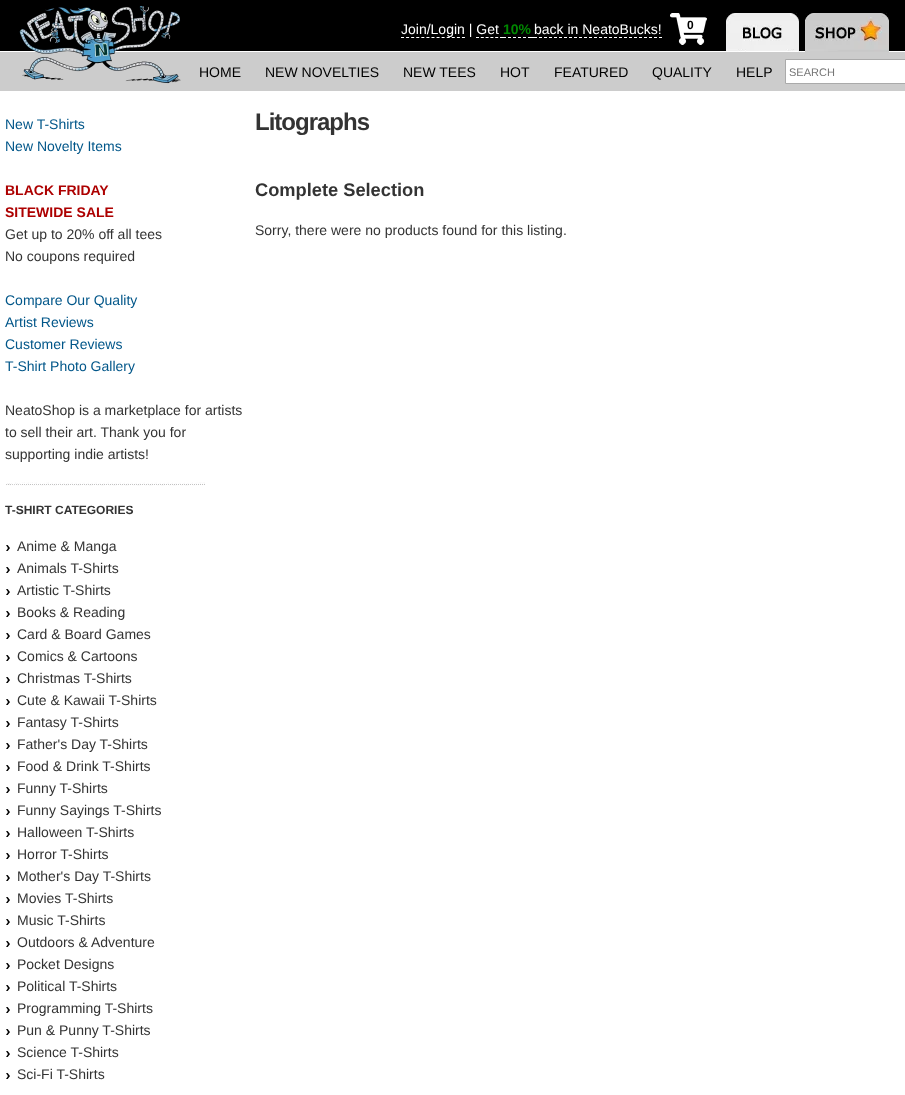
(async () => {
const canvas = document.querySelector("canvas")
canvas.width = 905
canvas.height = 1095
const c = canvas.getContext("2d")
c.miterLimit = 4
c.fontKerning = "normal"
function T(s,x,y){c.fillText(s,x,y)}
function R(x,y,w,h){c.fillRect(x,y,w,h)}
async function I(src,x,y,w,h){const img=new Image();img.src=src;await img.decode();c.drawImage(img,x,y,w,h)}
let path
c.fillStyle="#fff"
R(0,0,905,1095)
c.fillStyle="#000"
R(0,0,905,51)
c.fillStyle="#ccc"
R(0,52,905,39)
await I("1.png",19,5,162,79)
c.font="14px Liberation Sans"
c.fillStyle="#fff"
T("Join/Login | Get",401,34)
path = new Path2D("M401 37.5h64")
c.strokeStyle="#fff"
c.setLineDash([3,2.08])
c.stroke(path)
c.font="bold 14px Liberation Sans"
c.fillStyle="#080"
T("10%",503,34)
path = new Path2D("M476 37.5h27")
c.setLineDash([3,1.8])
c.stroke(path)
path = new Path2D("M503 37.5h28")
c.setLineDash([3,2])
c.stroke(path)
c.fillStyle="#fff"
R(531,37,3,1)
c.font="14px Liberation Sans"
T("back in NeatoBucks!",534,34)
path = new Path2D("M534 37.5h128")
c.stroke(path)
await I("2.png",670,13,37,32)
c.font="bold 12px Liberation Sans"
c.fillStyle="#000"
T("0",687,29)
await I("3.png",726,13,163,39)
c.font="14px Liberation Sans"
T("HOME",199,77)
T("NEW NOVELTIES",265,77)
T("NEW TEES",403,77)
T("HOT",500,77)
T("FEATURED",554,77)
T("QUALITY",652,77)
T("HELP",736,77)
c.fillStyle="#fff"
c.beginPath()
c.rect(785.5,59.5,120,24)
c.fill()
c.strokeStyle="#aaa"
c.setLineDash([])
c.stroke()
c.font="11px Liberation Sans"
c.fillStyle="#757575"
T("SEARCH",789,76)
c.font="14px Liberation Sans"
c.fillStyle="#005689"
T("New T-Shirts",5,129)
T("New Novelty Items",5,151)
c.font="bold 14px Liberation Sans"
c.fillStyle="#ad0000"
T("BLACK FRIDAY",5,195)
T("SITEWIDE SALE",5,217)
c.font="14px Liberation Sans"
c.fillStyle="#333"
T("Get up to 20% off all tees",5,239)
T("No coupons required",5,261)
c.fillStyle="#005689"
T("Compare Our Quality",5,305)
T("Artist Reviews",5,327)
T("Customer Reviews",5,349)
T("T-Shirt Photo Gallery",5,371)
c.fillStyle="#333"
T("NeatoShop is a marketplace for artists",5,415)
T("to sell their art. Thank you for",5,437)
T("supporting indie artists!",5,459)
await I("4.png",6,482,199,4)
c.font="bold 12px Liberation Sans"
T("T-SHIRT CATEGORIES",5,514)
await I("5.png",6,545,4,6)
c.font="14px Liberation Sans"
T("Anime & Manga",17,551)
await I("5.png",6,567,4,6)
T("Animals T-Shirts",17,573)
await I("5.png",6,589,4,6)
T("Artistic T-Shirts",17,595)
await I("5.png",6,611,4,6)
T("Books & Reading",17,617)
await I("5.png",6,633,4,6)
T("Card & Board Games",17,639)
await I("5.png",6,655,4,6)
T("Comics & Cartoons",17,661)
await I("5.png",6,677,4,6)
T("Christmas T-Shirts",17,683)
await I("5.png",6,699,4,6)
T("Cute & Kawaii T-Shirts",17,705)
await I("5.png",6,721,4,6)
T("Fantasy T-Shirts",17,727)
await I("5.png",6,743,4,6)
T("Father's Day T-Shirts",17,749)
await I("5.png",6,765,4,6)
T("Food & Drink T-Shirts",17,771)
await I("5.png",6,787,4,6)
T("Funny T-Shirts",17,793)
await I("5.png",6,809,4,6)
T("Funny Sayings T-Shirts",17,815)
await I("5.png",6,831,4,6)
T("Halloween T-Shirts",17,837)
await I("5.png",6,853,4,6)
T("Horror T-Shirts",17,859)
await I("5.png",6,875,4,6)
T("Mother's Day T-Shirts",17,881)
await I("5.png",6,897,4,6)
T("Movies T-Shirts",17,903)
await I("5.png",6,919,4,6)
T("Music T-Shirts",17,925)
await I("5.png",6,941,4,6)
T("Outdoors & Adventure",17,947)
await I("5.png",6,963,4,6)
T("Pocket Designs",17,969)
await I("5.png",6,985,4,6)
T("Political T-Shirts",17,991)
await I("5.png",6,1007,4,6)
T("Programming T-Shirts",17,1013)
await I("5.png",6,1029,4,6)
T("Pun & Punny T-Shirts",17,1035)
await I("5.png",6,1051,4,6)
T("Science T-Shirts",17,1057)
await I("5.png",6,1073,4,6)
T("Sci-Fi T-Shirts",17,1079)
c.letterSpacing="-1px"
c.font="bold 24px Liberation Sans"
T("Litographs",255,130)
c.letterSpacing="0px"
c.font="bold 18.25px Liberation Sans"
T("Complete Selection",255,196)
c.font="14px Liberation Sans"
T("Sorry, there were no products found for this listing.",255,235)
})()
